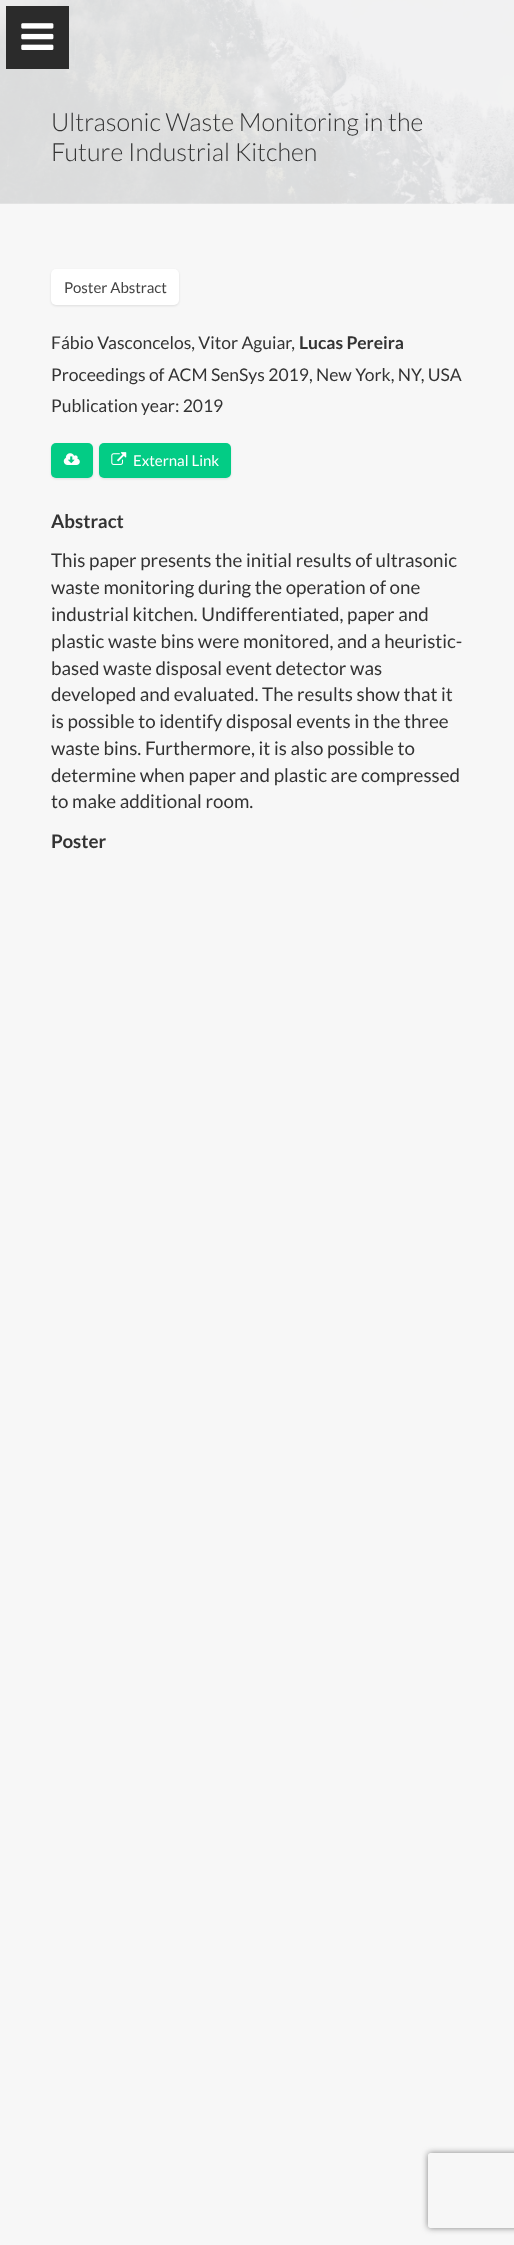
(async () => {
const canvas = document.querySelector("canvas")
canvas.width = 514
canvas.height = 2245
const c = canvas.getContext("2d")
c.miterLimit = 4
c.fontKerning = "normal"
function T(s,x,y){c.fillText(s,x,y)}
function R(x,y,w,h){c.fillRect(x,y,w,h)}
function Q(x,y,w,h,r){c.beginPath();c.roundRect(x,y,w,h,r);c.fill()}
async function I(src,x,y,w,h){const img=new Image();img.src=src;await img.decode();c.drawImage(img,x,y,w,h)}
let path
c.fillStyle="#f7f7f7"
R(0,0,514,2245)
await I("2.png",0,0,514,204)
c.fillStyle="#2b2b2b"
R(6,6,63,63)
await I("1.png",21,23,33,27)
c.font="300 25px Lato"
c.fillStyle="#333"
T("Ultrasonic Waste Monitoring in the",51,131)
T("Future Industrial Kitchen",51,161)
c.fillStyle="#0000001a"
c.filter="blur(1px)"
c.beginPath()
c.roundRect(51,270,128,36,5)
c.fill()
c.filter="none"
c.fillStyle="#fff"
Q(51,269,128,36,5)
c.font="15px Lato"
c.fillStyle="#444"
T("Poster Abstract",64,293)
c.font="17.5px Lato"
c.fillStyle="#333"
T("Fábio Vasconcelos, Vitor Aguiar,",51,349)
c.font="bold 17.5px Lato"
T("Lucas Pereira",299,349)
c.font="17.5px Lato"
T("Proceedings of ACM SenSys 2019, New York, NY, USA",51,381)
T("Publication year: 2019",51,412)
c.fillStyle="#0000001a"
c.filter="blur(1px)"
c.beginPath()
c.roundRect(51,444,42,35,5)
c.fill()
c.filter="none"
c.fillStyle="#03cc85"
Q(51,443,42,35,5)
await I("3.png",63,453,17,12)
c.fillStyle="#0000001a"
c.filter="blur(1px)"
c.beginPath()
c.roundRect(99,444,132,35,5)
c.fill()
c.filter="none"
c.fillStyle="#03cc85"
Q(99,443,132,35,5)
await I("4.png",111,452,16,13)
c.font="15px Lato"
c.fillStyle="#fff"
T("External Link",133,466)
c.font="bold 18.75px Lato"
c.fillStyle="#333"
T("Abstract",51,528)
c.font="18.75px Lato"
T("This paper presents the initial results of ultrasonic",51,567)
T("waste monitoring during the operation of one",51,594)
T("industrial kitchen. Undifferentiated, paper and",51,621)
T("plastic waste bins were monitored, and a heuristic-",51,648)
T("based waste disposal event detector was",51,675)
T("developed and evaluated. The results show that it",51,701)
T("is possible to identify disposal events in the three",51,728)
T("waste bins. Furthermore, it is also possible to",51,755)
T("determine when paper and plastic are compressed",51,782)
T("to make additional room.",51,808)
c.font="bold 18.75px Lato"
T("Poster",51,848)
c.save()
path = new Path2D("M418 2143h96v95h-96zm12.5 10h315c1.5 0 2.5 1 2.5 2.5v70c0 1.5-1 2.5-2.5 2.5h-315c-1.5 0-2.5-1-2.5-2.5v-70c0-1.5 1-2.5 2.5-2.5z")
c.clip(path,"evenodd")
c.fillStyle="#808080"
c.filter="blur(3px)"
c.beginPath()
c.roundRect(428,2153,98,75,2.5)
c.fill()
c.filter="none"
c.restore()
})()
